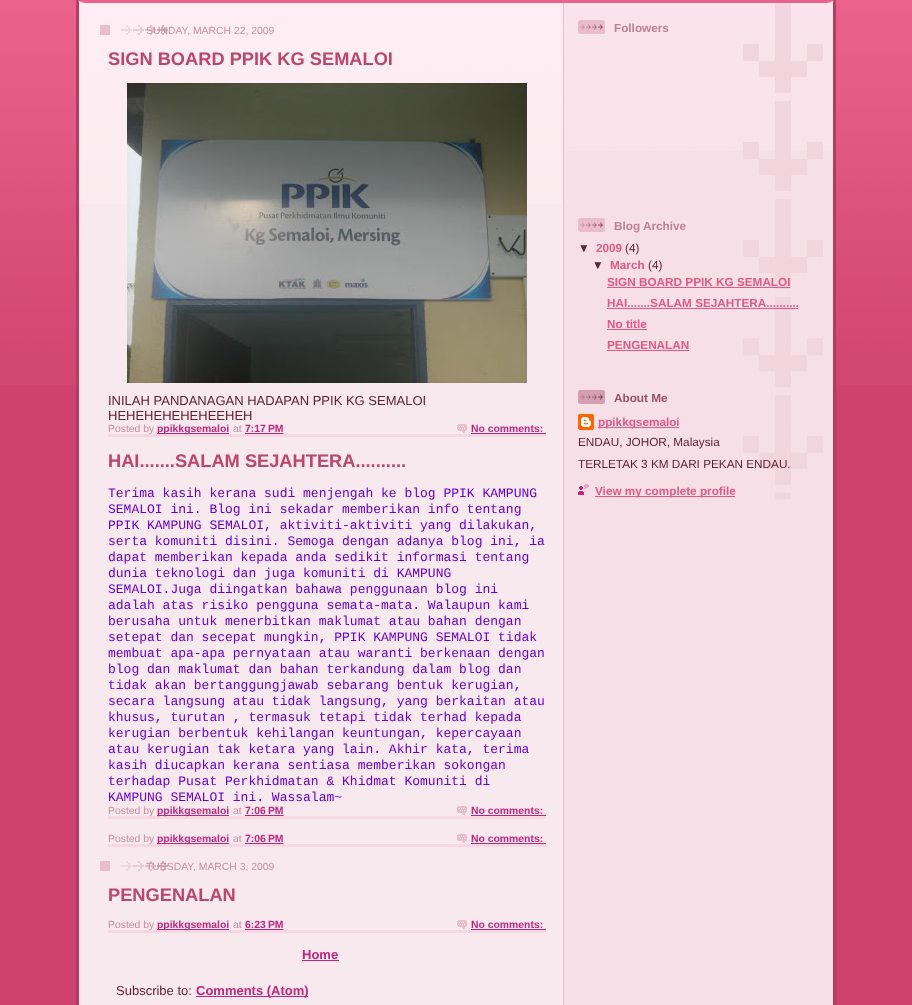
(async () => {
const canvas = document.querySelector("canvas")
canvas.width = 912
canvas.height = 1005
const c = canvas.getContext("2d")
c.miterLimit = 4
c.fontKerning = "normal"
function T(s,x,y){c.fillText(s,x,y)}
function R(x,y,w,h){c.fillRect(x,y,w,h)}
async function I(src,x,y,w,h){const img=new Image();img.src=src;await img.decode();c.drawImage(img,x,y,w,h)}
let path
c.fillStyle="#ce436e"
R(0,0,912,1005)
await I("1.png",0,0,912,385)
await I("2.png",76,0,760,3)
await I("3.png",76,3,760,1002)
await I("4.png",79,3,483,201)
c.fillStyle="#ebbdcc"
R(100,25,10,10)
await I("5.png",121,25,47,10)
c.font="10.4px Liberation Sans"
c.fillStyle="#c88fa2"
T("SUNDAY, MARCH 22, 2009",146,34)
c.fillStyle="#f7d8e2"
R(108,434,438,3)
c.font="bold 18.25px Liberation Sans"
c.fillStyle="#ba476b"
T("SIGN BOARD PPIK KG SEMALOI",108,65)
await I("6.png",127,83,400,300)
c.font="13px Liberation Sans"
c.fillStyle="#632035"
T("INILAH PANDANAGAN HADAPAN PPIK KG SEMALOI",108,405)
T("HEHEHEHEHEHEEHEH",108,420)
c.font="10.4px Liberation Sans"
c.fillStyle="#c88fa2"
T("Posted by",108,432)
c.fillStyle="#bf277e"
R(157,433,72,1)
c.font="bold 10.4px Liberation Sans"
T("ppikkgsemaloi",157,432)
c.font="10.4px Liberation Sans"
c.fillStyle="#c88fa2"
T("at",233,432)
c.font="bold 10.4px Liberation Sans"
c.fillStyle="#bf277e"
T("7:17 PM",245,432)
path = new Path2D("M245 433.5h38.5")
c.strokeStyle="#bf277e"
c.setLineDash([1,1])
c.stroke(path)
R(245,433,38,1)
await I("7.png",457,424,10,9)
T("No comments:",471,432)
R(471,433,75,1)
c.fillStyle="#f7d8e2"
R(108,816,438,3)
c.font="bold 18.25px Liberation Sans"
c.fillStyle="#ba476b"
T("HAI.......SALAM SEJAHTERA..........",108,467)
c.font="13px Liberation Mono"
c.fillStyle="#60c"
T("Terima kasih kerana sudi menjengah ke blog PPIK KAMPUNG",108,497)
T("SEMALOI ini. Blog ini sekadar memberikan info tentang",108,513)
T("PPIK KAMPUNG SEMALOI, aktiviti-aktiviti yang dilakukan,",108,529)
T("serta komuniti disini. Semoga dengan adanya blog ini, ia",108,545)
T("dapat memberikan kepada anda sedikit informasi tentang",108,561)
T("dunia teknologi dan juga komuniti di KAMPUNG",108,577)
T("SEMALOI.Juga diingatkan bahawa penggunaan blog ini",108,593)
T("adalah atas risiko pengguna semata-mata. Walaupun kami",108,609)
T("berusaha untuk menerbitkan maklumat atau bahan dengan",108,625)
T("setepat dan secepat mungkin, PPIK KAMPUNG SEMALOI tidak",108,641)
T("membuat apa-apa pernyataan atau waranti berkenaan dengan",108,657)
T("blog dan maklumat dan bahan terkandung dalam blog dan",108,673)
T("tidak akan bertanggungjawab sebarang bentuk kerugian,",108,689)
T("secara langsung atau tidak langsung, yang berkaitan atau",108,705)
T("khusus, turutan , termasuk tetapi tidak terhad kepada",108,721)
T("kerugian berbentuk kehilangan keuntungan, kepercayaan",108,737)
T("atau kerugian tak ketara yang lain. Akhir kata, terima",108,753)
T("kasih diucapkan kerana sentiasa memberikan sokongan",108,769)
T("terhadap Pusat Perkhidmatan & Khidmat Komuniti di",108,785)
T("KAMPUNG SEMALOI ini. Wassalam~",108,801)
c.font="10.4px Liberation Sans"
c.fillStyle="#c88fa2"
T("Posted by",108,814)
c.fillStyle="#bf277e"
R(157,815,72,1)
c.font="bold 10.4px Liberation Sans"
T("ppikkgsemaloi",157,814)
c.font="10.4px Liberation Sans"
c.fillStyle="#c88fa2"
T("at",233,814)
c.font="bold 10.4px Liberation Sans"
c.fillStyle="#bf277e"
T("7:06 PM",245,814)
path = new Path2D("M245 815.5h38.5")
c.stroke(path)
R(245,815,38,1)
await I("7.png",457,806,10,9)
T("No comments:",471,814)
R(471,815,75,1)
c.fillStyle="#f7d8e2"
R(108,844,438,3)
c.font="10.4px Liberation Sans"
c.fillStyle="#c88fa2"
T("Posted by",108,842)
c.fillStyle="#bf277e"
R(157,843,72,1)
c.font="bold 10.4px Liberation Sans"
T("ppikkgsemaloi",157,842)
c.font="10.4px Liberation Sans"
c.fillStyle="#c88fa2"
T("at",233,842)
c.font="bold 10.4px Liberation Sans"
c.fillStyle="#bf277e"
T("7:06 PM",245,842)
path = new Path2D("M245 843.5h38.5")
c.stroke(path)
R(245,843,38,1)
await I("7.png",457,834,10,9)
T("No comments:",471,842)
R(471,843,75,1)
c.fillStyle="#ebbdcc"
R(100,861,10,10)
await I("8.png",121,861,47,10)
c.font="10.4px Liberation Sans"
c.fillStyle="#c88fa2"
T("TUESDAY, MARCH 3, 2009",146,870)
c.fillStyle="#f7d8e2"
R(108,930,438,3)
c.font="bold 18.25px Liberation Sans"
c.fillStyle="#ba476b"
T("PENGENALAN",108,901)
c.font="10.4px Liberation Sans"
c.fillStyle="#c88fa2"
T("Posted by",108,928)
c.fillStyle="#bf277e"
R(157,929,72,1)
c.font="bold 10.4px Liberation Sans"
T("ppikkgsemaloi",157,928)
c.font="10.4px Liberation Sans"
c.fillStyle="#c88fa2"
T("at",233,928)
c.font="bold 10.4px Liberation Sans"
c.fillStyle="#bf277e"
T("6:23 PM",245,928)
path = new Path2D("M245 929.5h38.5")
c.stroke(path)
R(245,929,38,1)
await I("7.png",457,920,10,9)
T("No comments:",471,928)
R(471,929,75,1)
c.font="bold 13px Liberation Sans"
T("Home",302,959)
R(302,960,37,1)
c.font="13px Liberation Sans"
c.fillStyle="#632035"
T("Subscribe to:",116,995)
c.fillStyle="#bf277e"
R(196,996,112,1)
c.font="bold 13px Liberation Sans"
T("Comments (Atom)",196,995)
await I("9.png",564,3,269,148)
await I("10.png",743,3,80,496)
await I("11.png",578,20,27,14)
c.font="bold 11.75px Liberation Sans"
c.fillStyle="#bd8095"
T("Followers",614,32)
await I("12.png",578,218,27,14)
T("Blog Archive",614,230)
c.fillStyle="#632035"
T("▼",578,252)
c.fillStyle="#e25984"
T("2009",596,252)
c.font="11.75px Liberation Sans"
c.fillStyle="#632035"
T("(4)",625,252)
c.font="bold 11.75px Liberation Sans"
T("▼",592,269)
c.fillStyle="#e25984"
T("March",610,269)
c.font="11.75px Liberation Sans"
c.fillStyle="#632035"
T("(4)",648,269)
c.font="bold 11.75px Liberation Sans"
c.fillStyle="#e25984"
T("SIGN BOARD PPIK KG SEMALOI",607,286)
R(607,287,183,1)
T("HAI.......SALAM SEJAHTERA..........",607,307)
R(607,308,191,1)
T("No title",607,328)
R(607,329,40,1)
T("PENGENALAN",607,349)
R(607,350,82,1)
await I("13.png",578,390,27,14)
c.fillStyle="#95526a"
T("About Me",614,402)
await I("14.png",578,414,16,16)
c.fillStyle="#e25984"
R(598,427,81,1)
T("ppikkgsemaloi",598,426)
c.font="11.75px Liberation Sans"
c.fillStyle="#632035"
T("ENDAU, JOHOR, Malaysia",578,446)
T("TERLETAK 3 KM DARI PEKAN ENDAU.",578,468)
await I("15.png",578,484,11,11)
c.fillStyle="#e25984"
R(595,496,140,1)
c.font="bold 11.75px Liberation Sans"
T("View my complete profile",595,495)
})()
